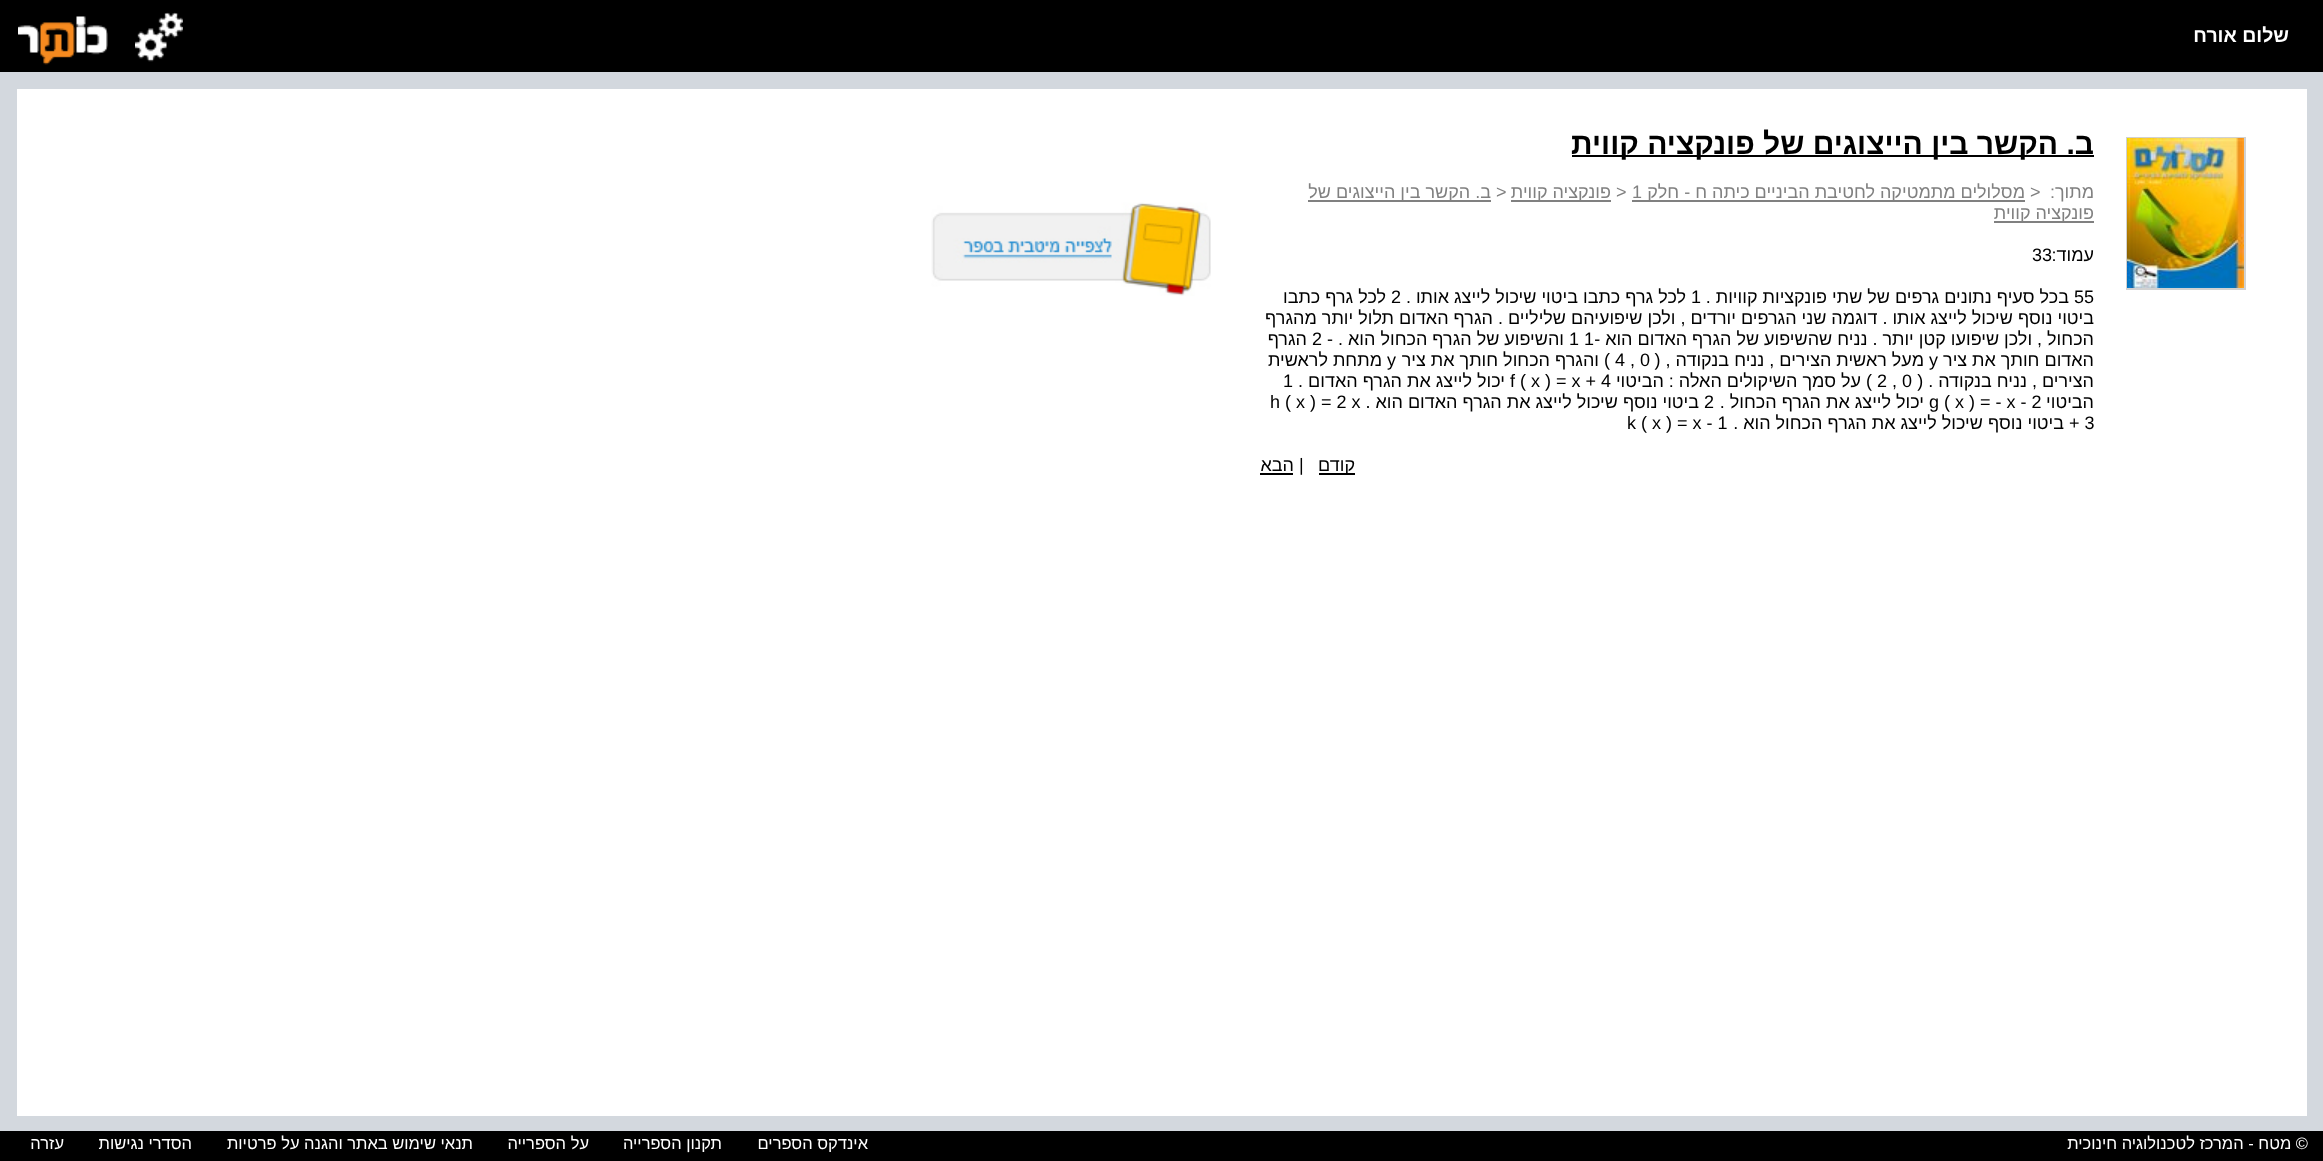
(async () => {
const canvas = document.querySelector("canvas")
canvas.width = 2323
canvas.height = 1161
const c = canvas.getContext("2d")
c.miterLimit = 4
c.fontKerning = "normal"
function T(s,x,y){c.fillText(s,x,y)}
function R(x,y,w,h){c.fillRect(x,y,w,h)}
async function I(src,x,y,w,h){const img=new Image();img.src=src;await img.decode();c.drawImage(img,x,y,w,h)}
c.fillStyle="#d3d8de"
R(0,0,2323,1161)
c.fillStyle="#000"
R(0,0,2323,72)
c.direction="rtl"
c.font="bold 19.5px Liberation Sans"
c.fillStyle="#fff"
T("שלום אורח",2289,42)
await I("1.png",135,12,48,50)
await I("2.png",18,16,90,49)
R(17,89,2290,1027)
c.strokeStyle="#d1d1d1"
c.lineWidth=2
c.strokeRect(2127,138,118,151)
await I("3.png",2127,138,117,150)
c.fillStyle="#000"
R(1572,155,522,2)
c.font="bold 30px Liberation Sans"
T("ב. הקשר בין הייצוגים של פונקציה קווית",2094,154)
c.font="18px Liberation Sans"
c.fillStyle="#808080"
T("מתוך:",2094,198)
c.direction="ltr"
T(">",2030,198)
R(1632,200,393,2)
c.direction="rtl"
T("מסלולים מתמטיקה לחטיבת הביניים כיתה ח - חלק",2025,198)
c.direction="ltr"
T("1",1632,198)
T(">",1616,198)
R(1511,200,100,2)
c.direction="rtl"
T("פונקציה קווית",1611,198)
c.direction="ltr"
T(">",1496,198)
R(1308,200,183,2)
c.direction="rtl"
T("ב. הקשר בין הייצוגים של",1491,198)
R(1994,221,100,2)
T("פונקציה קווית",2094,219)
c.fillStyle="#000"
T("עמוד:",2094,261)
c.direction="ltr"
T("33",2032,261)
T("55",2074,303)
c.direction="rtl"
T("בכל סעיף נתונים גרפים של שתי פונקציות קוויות .",2069,303)
c.direction="ltr"
T("1",1691,303)
c.direction="rtl"
T("לכל גרף כתבו ביטוי שיכול לייצג אותו .",1686,303)
c.direction="ltr"
T("2",1391,303)
c.direction="rtl"
T("לכל גרף כתבו",1386,303)
T("ביטוי נוסף שיכול לייצג אותו . דוגמה שני הגרפים יורדים , ולכן שיפועיהם שליליים . הגרף האדום תלול יותר מהגרף",2094,324)
T("הכחול , ולכן שיפועו קטן יותר . נניח שהשיפוע של הגרף האדום הוא -",2094,345)
c.direction="ltr"
T("1 1",1569,345)
c.direction="rtl"
T("והשיפוע של הגרף הכחול הוא . -",1564,345)
c.direction="ltr"
T("2",1312,345)
c.direction="rtl"
T("הגרף",1307,345)
T("האדום חותך את ציר",2094,366)
c.direction="ltr"
T("y",1929,366)
c.direction="rtl"
T("מעל ראשית הצירים , נניח בנקודה , (",1924,366)
c.direction="ltr"
T("4 , 0",1615,366)
c.direction="rtl"
T(") והגרף הכחול חותך את ציר",1610,366)
c.direction="ltr"
T("y",1387,366)
c.direction="rtl"
T("מתחת לראשית",1382,366)
T("הצירים , נניח בנקודה . (",2094,387)
c.direction="ltr"
T("2 , 0",1877,387)
c.direction="rtl"
T(") על סמך השיקולים האלה : הביטוי",1872,387)
c.direction="ltr"
T("f ( x ) = x + 4",1510,387)
c.direction="rtl"
T("יכול לייצג את הגרף האדום .",1505,387)
c.direction="ltr"
T("1",1283,387)
c.direction="rtl"
T("הביטוי",2094,408)
c.direction="ltr"
T("g ( x ) = - x - 2",1929,408)
c.direction="rtl"
T("יכול לייצג את הגרף הכחול .",1924,408)
c.direction="ltr"
T("2",1704,408)
c.direction="rtl"
T("ביטוי נוסף שיכול לייצג את הגרף האדום הוא .",1699,408)
c.direction="ltr"
T("h ( x ) = 2 x",1270,408)
T("+ 3",2069,429)
c.direction="rtl"
T("ביטוי נוסף שיכול לייצג את הגרף הכחול הוא .",2064,429)
c.direction="ltr"
T("k ( x ) = x - 1",1627,429)
R(1319,473,36,2)
c.direction="rtl"
T("קודם",1355,471)
c.direction="ltr"
T("|",1299,471)
c.direction="rtl"
T("הבא",1294,471)
R(1260,473,33,2)
await I("4.png",931,202,280,94)
R(0,1131,2323,30)
c.font="16.5px Liberation Sans"
c.fillStyle="#fff"
T("© מטח - המרכז לטכנולוגיה חינוכית",2308,1149)
T("אינדקס הספרים",868,1149)
T("תקנון הספרייה",722,1149)
T("על הספרייה",589,1149)
T("תנאי שימוש באתר והגנה על פרטיות",473,1149)
T("הסדרי נגישות",192,1149)
T("עזרה",64,1149)
})()
